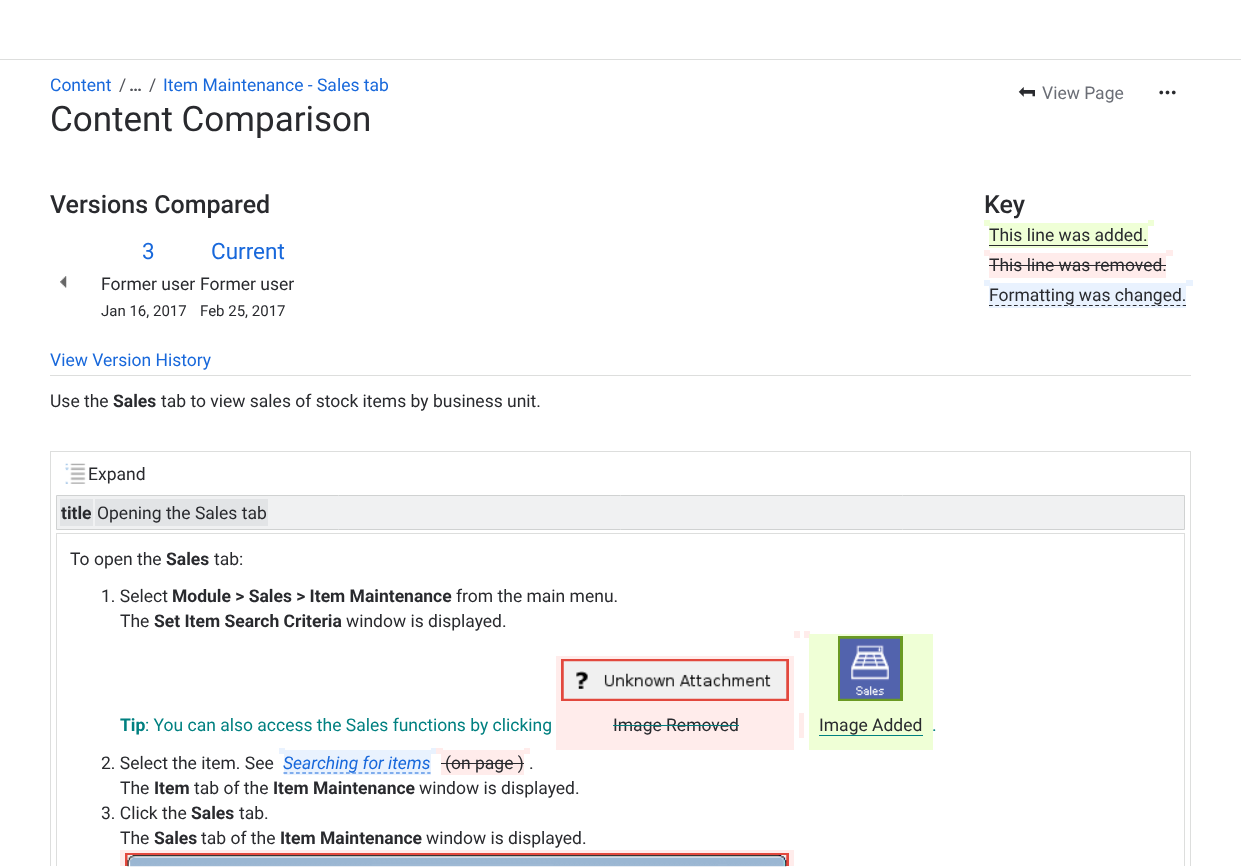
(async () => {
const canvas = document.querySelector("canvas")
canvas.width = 1241
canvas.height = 868
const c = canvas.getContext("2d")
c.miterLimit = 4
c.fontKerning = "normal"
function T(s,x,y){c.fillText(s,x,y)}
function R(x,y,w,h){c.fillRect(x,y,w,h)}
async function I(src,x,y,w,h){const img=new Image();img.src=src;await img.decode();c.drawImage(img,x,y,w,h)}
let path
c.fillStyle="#fff"
R(0,0,1241,868)
c.fillStyle="#dddedd"
R(0,59,1241,1)
c.font="17.5px Roboto"
c.fillStyle="#1868db"
T("Content",50,91)
c.fillStyle="#505258"
T("/",119,91)
c.font="bold 17.5px Roboto"
T("…",129,91)
c.font="17.5px Roboto"
T("/",149,91)
c.fillStyle="#1868db"
T("Item Maintenance - Sales tab",163,91)
c.font="35px Roboto"
c.fillStyle="#292a2e"
T("Content Comparison",50,131)
await I("1.png",1018,87,17,10)
c.font="17.5px Roboto"
c.fillStyle="#6b6e76"
T("View Page",1042,99)
await I("2.png",1159,90,17,5)
c.fillStyle="#dddedd"
R(50,375,1141,1)
c.font="500 25px Roboto"
c.fillStyle="#292a2e"
T("Versions Compared",50,213)
T("Key",984,213)
c.fillStyle="#efffd6"
R(984,220,6,6)
R(989,223,159,25)
c.font="17.5px Roboto"
c.fillStyle="#292a2e"
T("This line was added.",989,241)
c.fillStyle="#efffd6"
R(1148,220,6,6)
c.fillStyle="#292a2e"
R(989,245,159,1)
c.fillStyle="#ffeceb"
R(984,250,6,6)
R(989,253,177,25)
c.fillStyle="#292a2e"
T("This line was removed.",989,271)
c.fillStyle="#ffeceb"
R(1166,250,7,6)
c.fillStyle="#292a2e"
R(989,265,177,1)
c.fillStyle="#e9f2fe"
R(984,280,6,6)
R(989,283,197,25)
path = new Path2D("M989 305.5h197")
c.strokeStyle="#292a2e"
c.lineWidth=1.2
c.setLineDash([3.75,2.5])
c.stroke(path)
c.fillStyle="#292a2e"
T("Formatting was changed.",989,301)
c.fillStyle="#e9f2fe"
R(1186,280,7,6)
c.font="22.5px Roboto"
c.fillStyle="#1868db"
T("3",142,259)
T("Current",211,259)
c.font="17.5px Roboto"
c.fillStyle="#292a2e"
T("Former user",101,290)
T("Former user",200,290)
c.font="15px Roboto"
T("Jan 16, 2017",101,316)
T("Feb 25, 2017",200,316)
await I("3.png",60,276,7,12)
c.font="17.5px Roboto"
c.fillStyle="#1868db"
T("View Version History",50,366)
c.fillStyle="#292a2e"
T("Use the",50,407)
c.font="bold 17.5px Roboto"
T("Sales",113,407)
c.font="17.5px Roboto"
T("tab to view sales of stock items by business unit.",161,407)
c.save()
c.beginPath()
c.rect(0,60,1241,806)
c.clip()
c.strokeStyle="#dddedd"
c.lineWidth=1
c.setLineDash([])
c.strokeRect(50.5,451.5,1140,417)
c.restore()
await I("4.png",65,463,21,21)
T("Expand",88,480)
c.fillStyle="#f0f1f2"
c.beginPath()
c.rect(56.5,495.5,1128,34)
c.fill()
c.strokeStyle="#d0d2d2"
c.lineWidth=1
c.setLineDash([])
c.stroke()
c.fillStyle="#e2e4e6"
R(60,499,33,27)
c.font="bold 17.5px Roboto"
c.fillStyle="#292a2e"
T("title",61,519)
c.fillStyle="#e2e4e6"
R(95,499,173,27)
c.font="17.5px Roboto"
c.fillStyle="#292a2e"
T("Opening the Sales tab",97,519)
c.save()
c.beginPath()
c.rect(0,60,1241,806)
c.clip()
c.strokeStyle="#dddedd"
c.strokeRect(56.5,533.5,1128,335)
c.restore()
T("To open the",70,565)
c.font="bold 17.5px Roboto"
T("Sales",166,565)
c.font="17.5px Roboto"
T("tab:",214,565)
T("1. Select",101,602)
c.font="bold 17.5px Roboto"
T("Module > Sales > Item Maintenance",172,602)
c.font="17.5px Roboto"
T("from the main menu.",456,602)
T("The",120,627)
c.font="bold 17.5px Roboto"
T("Set Item Search Criteria",154,627)
c.font="17.5px Roboto"
T("window is displayed.",346,627)
c.fillStyle="#ffeceb"
R(794,631,6,7)
R(804,631,6,7)
c.font="bold 17.5px Roboto"
c.fillStyle="#008080"
T("Tip",120,731)
c.font="17.5px Roboto"
T(": You can also access the Sales functions by clicking",145,731)
c.fillStyle="#ffeceb"
R(556,656,238,94)
c.strokeStyle="#e2483d"
c.lineWidth=3
c.strokeRect(562.5,660.5,225,39)
await I("5.png",563,661,224,38)
c.fillStyle="#292a2e"
T("Image Removed",613,731)
c.fillStyle="#008080"
R(613,725,126,1)
c.fillStyle="#ffeceb"
R(799,713,5,25)
c.fillStyle="#efffd6"
R(809,634,124,116)
c.strokeStyle="#6a9a23"
c.strokeRect(839.5,637.5,62,62)
await I("6.png",840,638,60,61)
c.fillStyle="#292a2e"
T("Image Added",819,731)
c.fillStyle="#008080"
R(819,735,104,1)
T(".",932,731)
c.fillStyle="#292a2e"
T("2. Select the item. See",101,769)
c.fillStyle="#e9f2fe"
R(279,748,6,6)
R(284,750,147,25)
path = new Path2D("M283.5 773h147")
c.strokeStyle="#1868db"
c.lineWidth=1.2
c.setLineDash([3.75,2.5])
c.stroke(path)
c.font="italic 17.5px Roboto"
c.fillStyle="#1868db"
T("Searching for items",283,769)
c.fillStyle="#e9f2fe"
R(431,748,7,6)
c.fillStyle="#ffeceb"
R(436,748,7,6)
R(441,750,83,25)
c.font="17.5px Roboto"
c.fillStyle="#292a2e"
T("(on page )",445,769)
c.fillStyle="#ffeceb"
R(524,748,6,6)
c.fillStyle="#292a2e"
R(441,763,83,1)
T(".",529,769)
T("The",120,794)
c.font="bold 17.5px Roboto"
T("Item",154,794)
c.font="17.5px Roboto"
T("tab of the",194,794)
c.font="bold 17.5px Roboto"
T("Item Maintenance",273,794)
c.font="17.5px Roboto"
T("window is displayed.",419,794)
T("3. Click the",101,819)
c.font="bold 17.5px Roboto"
T("Sales",191,819)
c.font="17.5px Roboto"
T("tab.",239,819)
T("The",120,844)
c.font="bold 17.5px Roboto"
T("Sales",154,844)
c.font="17.5px Roboto"
T("tab of the",201,844)
c.font="bold 17.5px Roboto"
T("Item Maintenance",280,844)
c.font="17.5px Roboto"
T("window is displayed.",426,844)
c.fillStyle="#ffeceb"
R(120,850,674,16)
c.save()
c.beginPath()
c.rect(0,60,1241,806)
c.clip()
c.strokeStyle="#e2483d"
c.lineWidth=3
c.setLineDash([])
c.strokeRect(126.5,854.5,661,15)
c.restore()
await I("7.png",127,855,660,12)
})()
